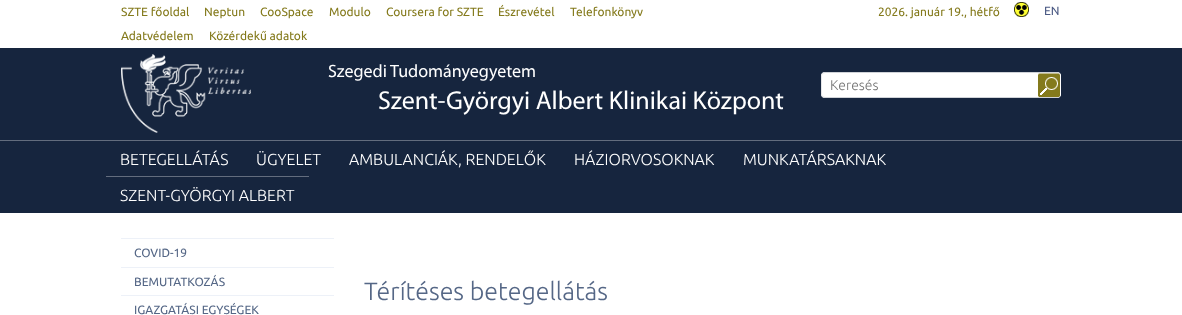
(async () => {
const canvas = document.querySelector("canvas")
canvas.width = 1182
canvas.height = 315
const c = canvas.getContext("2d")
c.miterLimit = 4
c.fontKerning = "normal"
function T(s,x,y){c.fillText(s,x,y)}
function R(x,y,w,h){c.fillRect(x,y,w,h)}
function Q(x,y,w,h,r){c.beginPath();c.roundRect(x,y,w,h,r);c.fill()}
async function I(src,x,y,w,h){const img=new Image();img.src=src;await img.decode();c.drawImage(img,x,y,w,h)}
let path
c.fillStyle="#fff"
R(0,0,1182,315)
c.font="12px Ubuntu"
c.fillStyle="#847a1c"
T("SZTE főoldal",121,16)
T("Neptun",204,16)
T("CooSpace",260,16)
T("Modulo",329,16)
T("Coursera for SZTE",386,16)
T("Észrevétel",498,16)
T("Telefonkönyv",570,16)
T("Adatvédelem",121,40)
T("Közérdekű adatok",209,40)
T("2026. január 19., hétfő",878,16)
await I("1.png",1014,2,15,15)
c.fillStyle="#4b5a84"
T("EN",1044,15)
c.fillStyle="#16253e"
R(0,48,1182,92)
await I("2.png",121,54,130,79)
c.font="18px Myriad"
c.fillStyle="#fff"
T("Szegedi Tudományegyetem",328,77)
c.font="26px Myriad"
T("Szent-Györgyi Albert Klinikai Központ",378,109)
Q(821,72,240,26,4)
path = new Path2D("M822.5 73.5c.5-.5 1.5-1 2.5-1h232c1 0 2 .5 2.5 1")
c.strokeStyle="#d0d3d8"
c.stroke(path)
path = new Path2D("M1059.5 73.5c.5 .5 1 1.5 1 2.5v18c0 1-.5 2-1 2.5")
c.strokeStyle="#fff"
c.stroke(path)
path = new Path2D("M1059.5 96.5c-.5 .5-1.5 1-2.5 1h-232c-1 0-2-.5-2.5-1")
c.strokeStyle="#d0d3d8"
c.stroke(path)
path = new Path2D("M822.5 96.5c-.5-.5-1-1.5-1-2.5v-18c0-1 .5-2 1-2.5")
c.strokeStyle="#e4e5e8"
c.stroke(path)
c.font="300 14px Ubuntu"
c.fillStyle="#757575"
T("Keresés",830,90)
c.fillStyle="#847a1c80"
c.filter="blur(0.5px)"
c.beginPath()
c.roundRect(1038,73,22,23,2)
c.fill()
c.filter="none"
c.fillStyle="#847a1c"
Q(1038,74,22,23,2)
await I("3.png",1040,77,18,18)
c.beginPath()
c.roundRect(1038.5,74.5,21,22,1.5)
c.strokeStyle="#847a1c"
c.stroke()
c.fillStyle="#16253e"
R(0,141,1182,72)
c.fillStyle="#636d7e"
R(0,140,1182,1)
c.font="300 16px Ubuntu"
c.fillStyle="#fff"
T("BETEGELLÁTÁS",120,165)
T("ÜGYELET",256,165)
T("AMBULANCIÁK, RENDELŐK",349,165)
T("HÁZIORVOSOKNAK",574,165)
T("MUNKATÁRSAKNAK",743,165)
c.fillStyle="#636d7e"
R(106,176,203,1)
c.fillStyle="#fff"
T("SZENT-GYÖRGYI ALBERT",120,201)
c.fillStyle="#edf1f8"
R(121,238,213,1)
c.font="12px Ubuntu"
c.fillStyle="#556786"
T("COVID-19",134,257)
c.fillStyle="#edf1f8"
R(121,267,213,1)
c.fillStyle="#556786"
T("BEMUTATKOZÁS",134,286)
c.fillStyle="#edf1f8"
R(121,295,213,1)
c.fillStyle="#556786"
T("IGAZGATÁSI EGYSÉGEK",134,314)
c.font="300 25px Ubuntu"
T("Térítéses betegellátás",364,300)
})()
